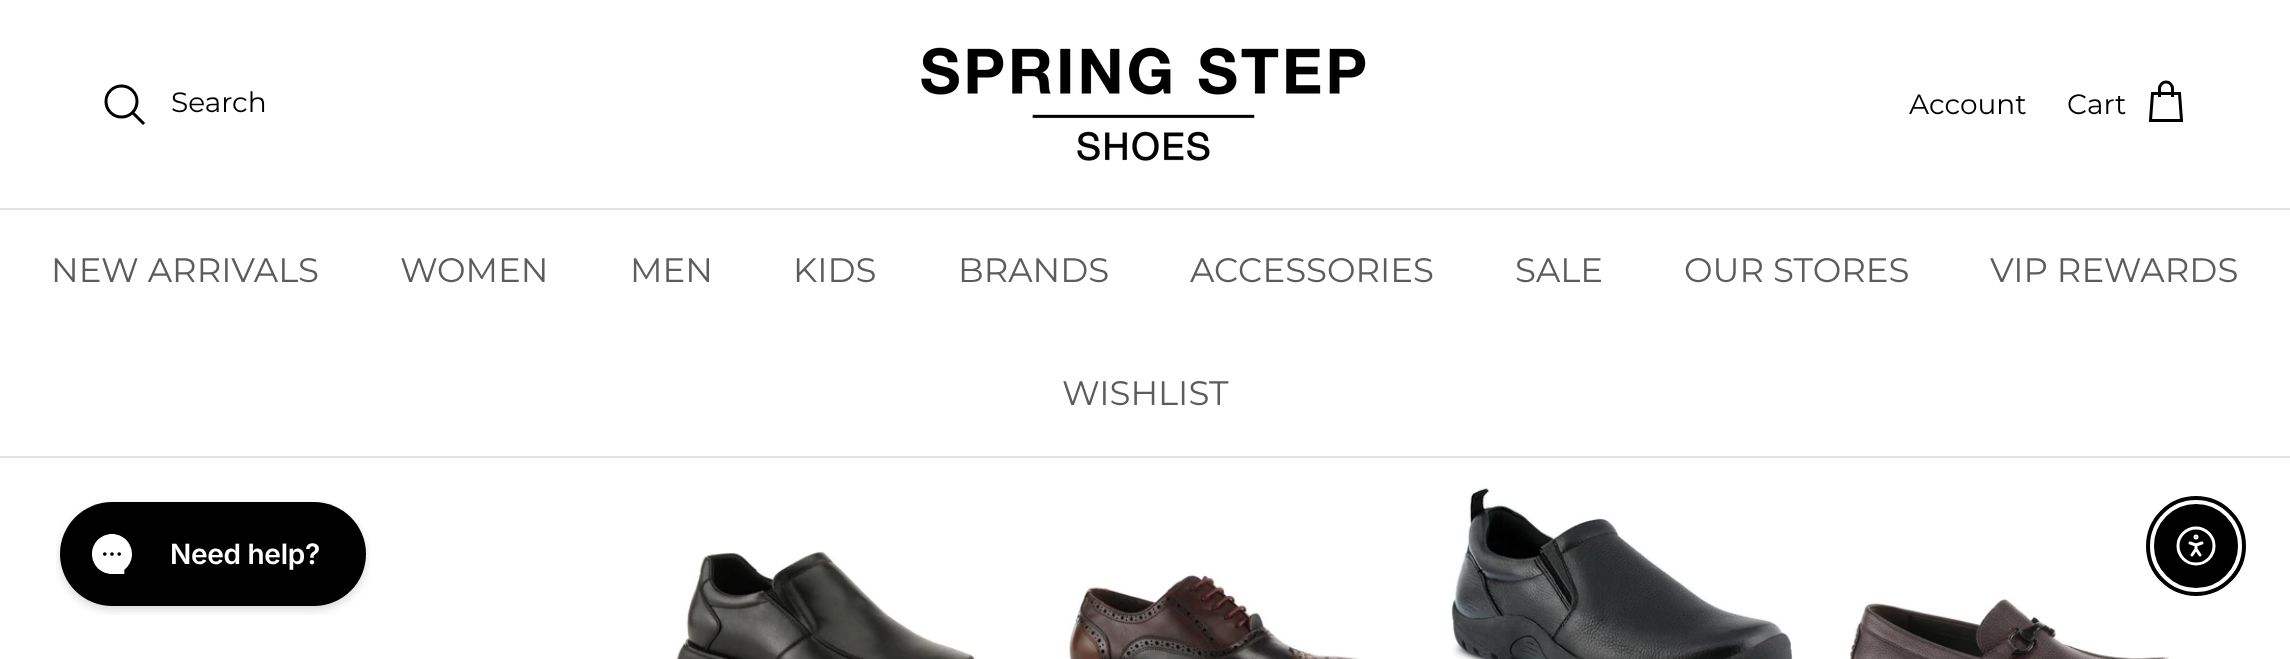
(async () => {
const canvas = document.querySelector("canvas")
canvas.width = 2290
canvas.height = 659
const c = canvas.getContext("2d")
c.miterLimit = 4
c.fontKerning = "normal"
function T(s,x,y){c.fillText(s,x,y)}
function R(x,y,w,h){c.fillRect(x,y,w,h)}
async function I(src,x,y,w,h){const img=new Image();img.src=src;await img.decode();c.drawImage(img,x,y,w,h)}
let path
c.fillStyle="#fff"
R(0,0,2290,659)
c.fillStyle="#dfe3e8"
R(0,208,2290,2)
c.beginPath()
c.arc(121.5,101.5,15.5,0,7)
c.strokeStyle="#000"
c.lineWidth=3
c.stroke()
c.font="100 28px Montserrat"
c.fillStyle="#000"
T("Search",171,112)
path = new Path2D("M134 114l9 9")
c.lineCap="square"
c.stroke(path)
await I("1.png",921,47,445,114)
T("Account",1909,114)
T("Cart",2067,114)
path = new Path2D("M2172.5 97v-8.5c0-3.5-3-6.5-6.5-6.5c-3.5 0-6.5 3-6.5 6.5v8.5m-7-3.5h27l2 27h-31z")
c.lineCap="butt"
c.stroke(path)
c.fillStyle="#dfe3e8"
R(0,456,2290,2)
c.font="100 34px Montserrat"
c.fillStyle="#5c5c5c"
T("NEW ARRIVALS",51,282)
T("WOMEN",400,282)
T("MEN",630,282)
T("KIDS",793,282)
T("BRANDS",958,282)
T("ACCESSORIES",1190,282)
T("SALE",1515,282)
T("OUR STORES",1684,282)
T("VIP REWARDS",1990,282)
T("WISHLIST",1062,405)
await I("2.png",56,501,314,114)
await I("3.png",676,550,300,109)
await I("4.png",1069,573,290,86)
await I("5.png",1450,487,344,172)
await I("6.png",1850,598,319,61)
c.beginPath()
c.arc(2196,546,48,0,7)
c.lineWidth=4
c.stroke()
c.fillStyle="#000"
c.beginPath()
c.arc(2196,546,41,0,7)
c.fill()
c.lineWidth=2
c.stroke()
c.beginPath()
c.arc(2196,546,18,0,7)
c.strokeStyle="#fff"
c.lineWidth=3
c.stroke()
c.beginPath()
c.arc(2196,537,1,0,7)
c.stroke()
path = new Path2D("M2192 555l4-6l4 6m-4-6v-4l6-2m-12 0l6 2")
c.lineCap="round"
c.lineJoin="round"
c.stroke(path)
})()
